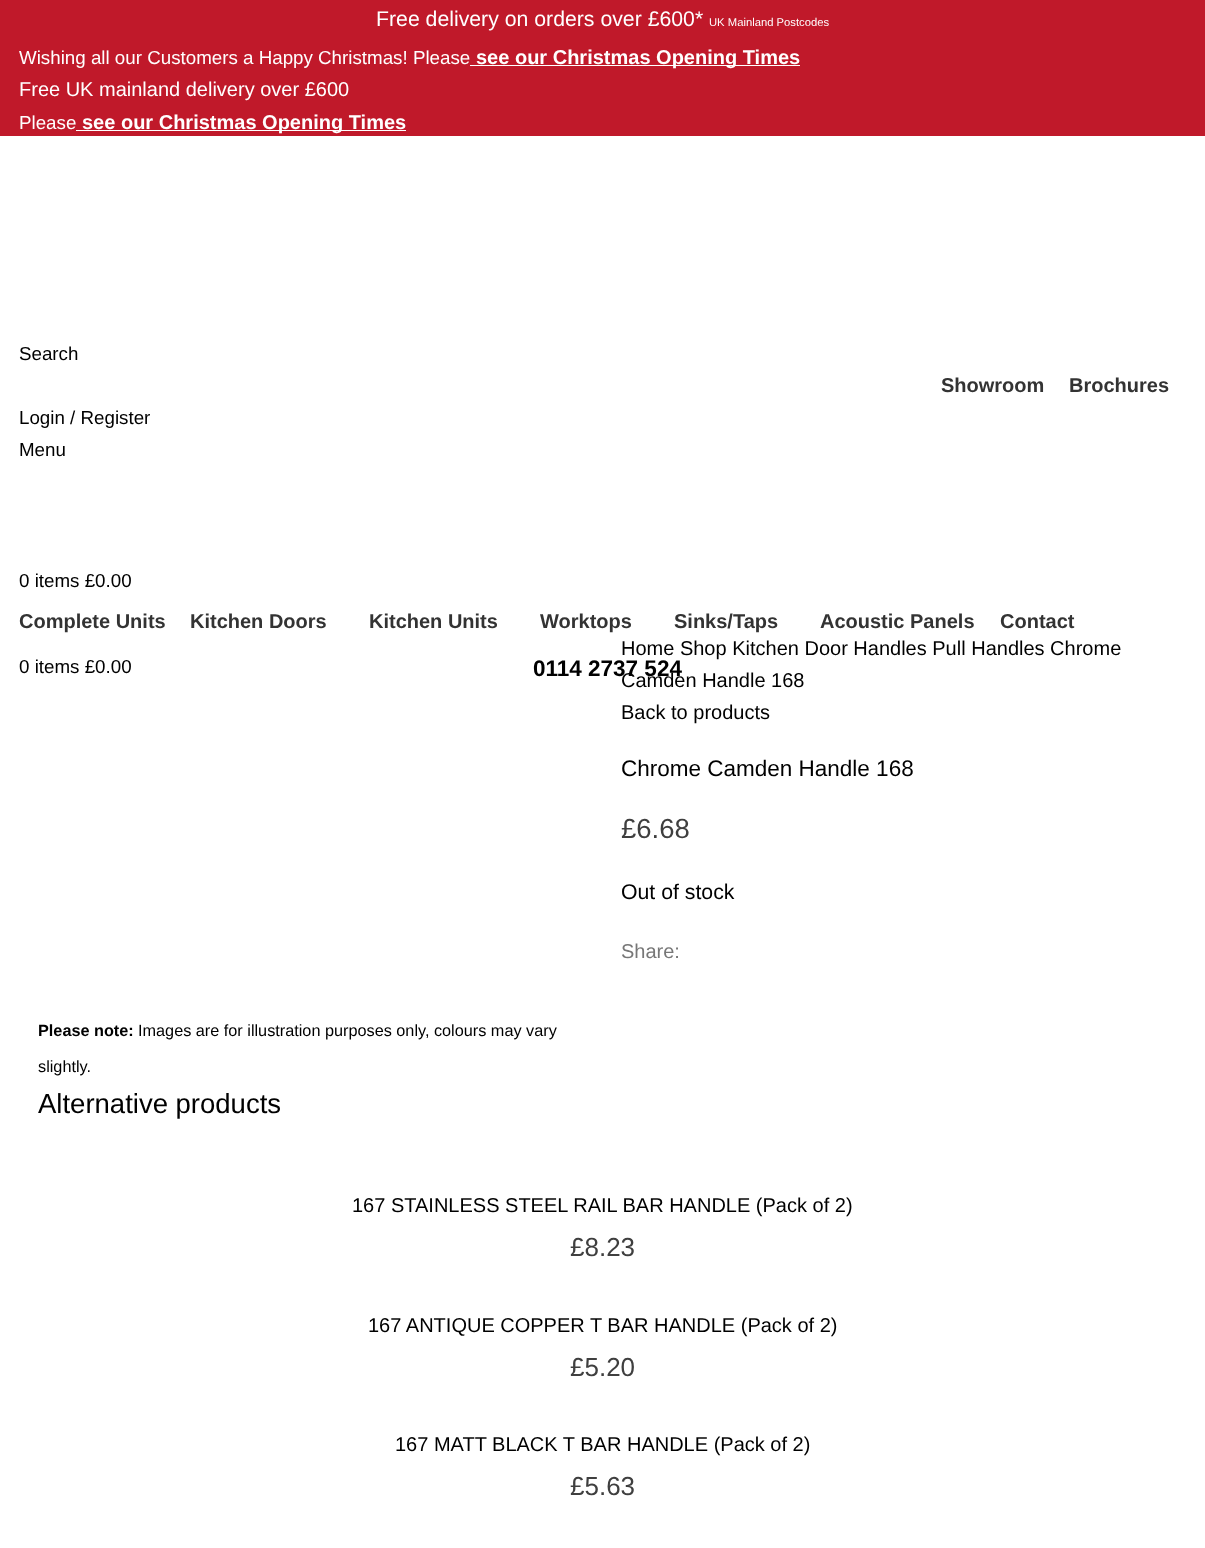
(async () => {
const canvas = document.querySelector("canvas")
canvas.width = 1205
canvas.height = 1548
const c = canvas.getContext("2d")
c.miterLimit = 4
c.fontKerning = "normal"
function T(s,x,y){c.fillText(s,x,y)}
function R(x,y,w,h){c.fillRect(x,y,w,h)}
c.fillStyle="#fff"
R(0,0,1205,1548)
c.fillStyle="#c0192a"
R(0,0,1205,136)
c.font="21.25px Liberation Sans"
c.fillStyle="#fff"
T("Free delivery on orders over £600*",376,26)
c.font="11.25px Liberation Sans"
T("UK Mainland Postcodes",709,26)
c.font="18.75px Liberation Sans"
T("Wishing all our Customers a Happy Christmas! Please",19,64)
R(470,65,330,1)
c.font="bold 20px Liberation Sans"
T("see our Christmas Opening Times",476,64)
c.font="20px Liberation Sans"
T("Free UK mainland delivery over £600",19,96)
c.font="18.75px Liberation Sans"
T("Please",19,129)
R(76,130,330,1)
c.font="bold 20px Liberation Sans"
T("see our Christmas Opening Times",82,129)
c.font="18.75px Liberation Sans"
c.fillStyle="#000"
T("Search",19,360)
c.font="bold 20px Liberation Sans"
c.fillStyle="#333"
T("Showroom",941,392)
T("Brochures",1069,392)
c.font="18.75px Liberation Sans"
c.fillStyle="#000"
T("Login / Register",19,424)
T("Menu",19,456)
T("0 items £0.00",19,587)
c.font="bold 20px Liberation Sans"
c.fillStyle="#333"
T("Complete Units",19,628)
T("Kitchen Doors",190,628)
T("Kitchen Units",369,628)
T("Worktops",540,628)
T("Sinks/Taps",674,628)
T("Acoustic Panels",820,628)
T("Contact",1000,628)
c.font="18.75px Liberation Sans"
c.fillStyle="#000"
T("0 items £0.00",19,673)
c.font="bold 22.5px Liberation Sans"
T("0114 2737 524",533,676)
c.font="20px Liberation Sans"
T("Home Shop Kitchen Door Handles Pull Handles Chrome",621,655)
T("Camden Handle 168",621,687)
T("Back to products",621,719)
c.font="22.5px Liberation Sans"
T("Chrome Camden Handle 168",621,776)
c.font="27.5px Liberation Sans"
c.fillStyle="#3f3f3f"
T("£6.68",621,838)
c.font="21.25px Liberation Sans"
c.fillStyle="#000"
T("Out of stock",621,899)
c.font="20px Liberation Sans"
c.fillStyle="#777"
T("Share:",621,958)
c.font="bold 16.25px Liberation Sans"
c.fillStyle="#000"
T("Please note:",38,1036)
c.font="16.25px Liberation Sans"
T("Images are for illustration purposes only, colours may vary",138,1036)
T("slightly.",38,1072)
c.font="27.5px Liberation Sans"
T("Alternative products",38,1113)
c.font="20px Liberation Sans"
T("167 STAINLESS STEEL RAIL BAR HANDLE (Pack of 2)",352,1212)
c.font="26px Liberation Sans"
c.fillStyle="#3f3f3f"
T("£8.23",570,1256)
c.font="20px Liberation Sans"
c.fillStyle="#000"
T("167 ANTIQUE COPPER T BAR HANDLE (Pack of 2)",368,1332)
c.font="26px Liberation Sans"
c.fillStyle="#3f3f3f"
T("£5.20",570,1376)
c.font="20px Liberation Sans"
c.fillStyle="#000"
T("167 MATT BLACK T BAR HANDLE (Pack of 2)",395,1451)
c.font="26px Liberation Sans"
c.fillStyle="#3f3f3f"
T("£5.63",570,1495)
})()
